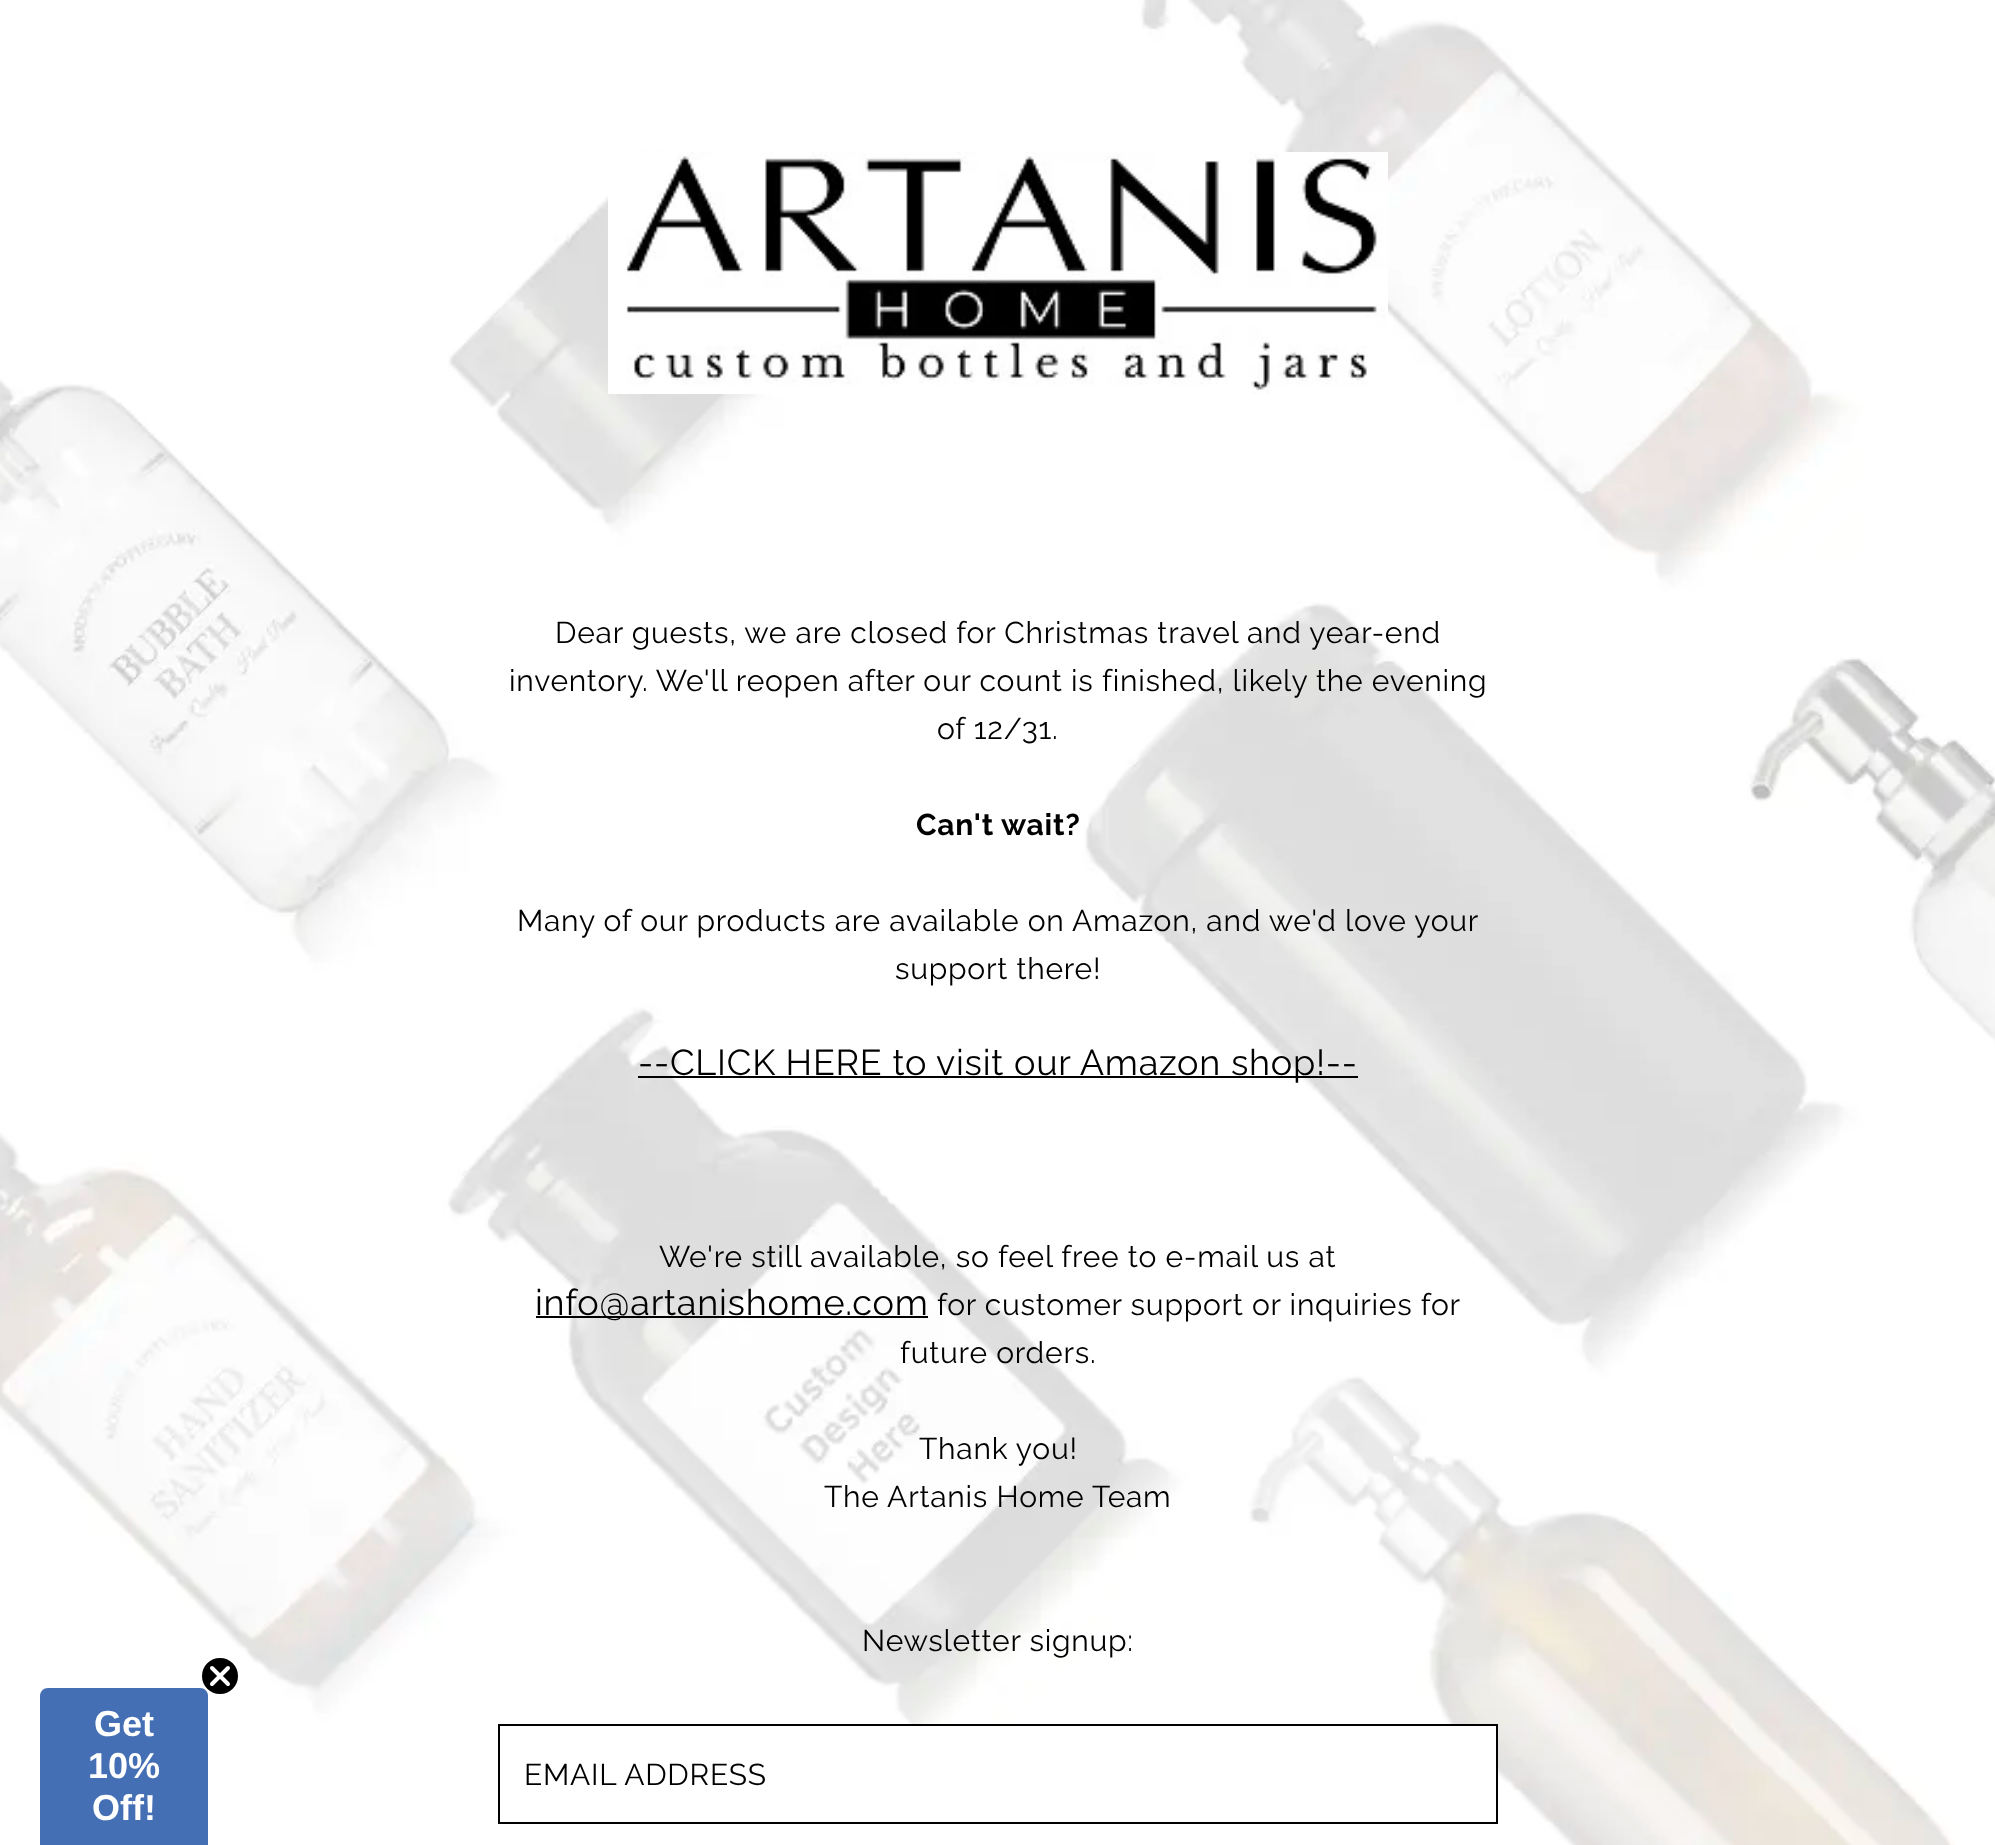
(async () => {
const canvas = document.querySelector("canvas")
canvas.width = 1995
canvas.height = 1845
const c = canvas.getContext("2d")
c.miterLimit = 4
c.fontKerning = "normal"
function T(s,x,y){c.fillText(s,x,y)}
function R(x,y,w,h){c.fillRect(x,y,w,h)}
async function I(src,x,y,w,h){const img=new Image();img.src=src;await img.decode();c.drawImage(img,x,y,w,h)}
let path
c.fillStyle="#fff"
R(0,0,1995,1845)
await I("1.png",0,0,1995,1845)
c.fillStyle="#456fb4"
path = new Path2D("M48 1688h152c4.5 0 8 3.5 8 8v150h-168v-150c0-4.5 3.5-8 8-8z")
c.fill(path)
c.fillStyle="#000"
c.beginPath()
c.arc(220,1676,19,0,7)
c.fill()
c.strokeStyle="#fff"
c.lineWidth=2
c.stroke()
path = new Path2D("M212 1668l16 16m-16 0l16-16z")
c.lineWidth=4
c.lineCap="round"
c.lineJoin="round"
c.stroke(path)
c.font="bold 36px Liberation Sans"
c.fillStyle="#fff"
T("Get",94,1736)
T("10%",88,1778)
T("Off!",92,1820)
await I("2.png",608,152,780,242)
c.letterSpacing="0.75px"
c.font="30px Raleway"
c.fillStyle="#000"
T("Dear guests, we are closed for Christmas travel and year-end",555,643)
T("inventory. We'll reopen after our count is finished, likely the evening",509,691)
T("of 12/31.",937,739)
c.font="bold 30px Raleway"
T("Can't wait?",916,835)
c.font="30px Raleway"
T("Many of our products are available on Amazon, and we'd love your",517,931)
T("support there!",895,979)
R(638,1076,720,2)
c.font="36px Raleway"
T("--CLICK HERE to visit our Amazon shop!--",638,1075)
c.font="30px Raleway"
T("We're still available, so feel free to e-mail us at",659,1267)
R(536,1316,392,2)
c.font="36px Raleway"
T("info@artanishome.com",535,1315)
c.font="30px Raleway"
T("for customer support or inquiries for",937,1315)
T("future orders.",900,1363)
T("Thank you!",919,1459)
T("The Artanis Home Team",824,1507)
T("Newsletter signup:",862,1651)
c.fillStyle="#fff"
R(911,1726,585,47)
c.strokeStyle="#000"
c.lineWidth=2
c.lineJoin="miter"
c.strokeRect(499,1725,998,98)
c.fillStyle="#000"
T("EMAIL ADDRESS",524,1785)
})()
